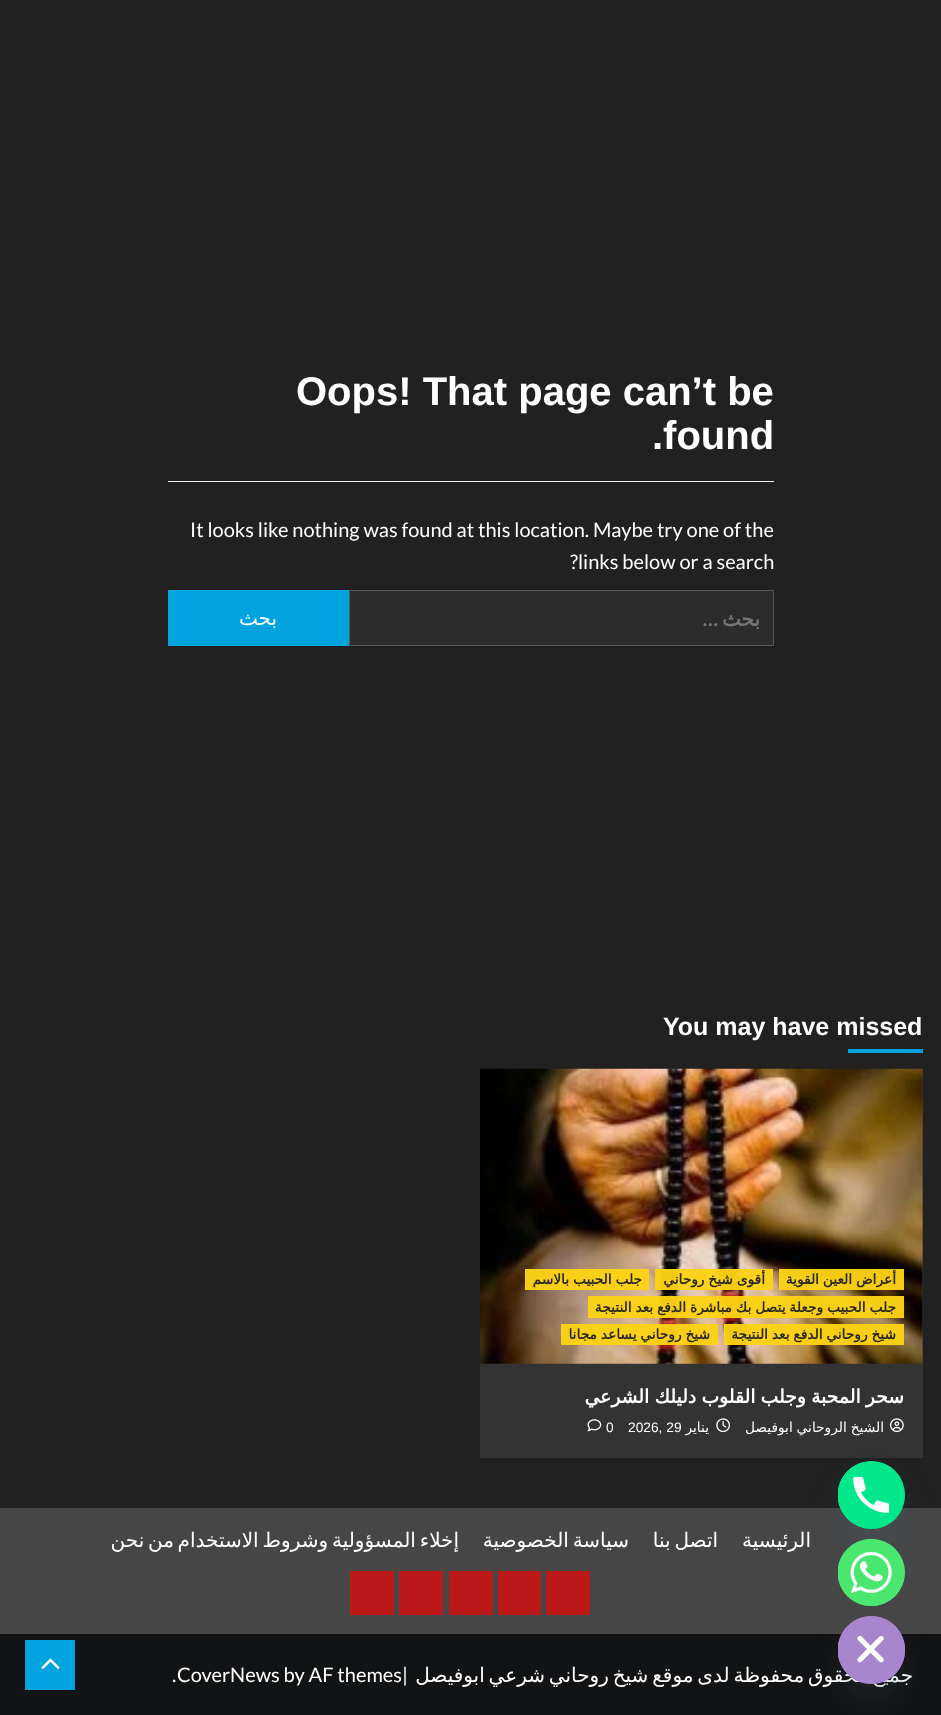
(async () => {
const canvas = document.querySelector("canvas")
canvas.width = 941
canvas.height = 1715
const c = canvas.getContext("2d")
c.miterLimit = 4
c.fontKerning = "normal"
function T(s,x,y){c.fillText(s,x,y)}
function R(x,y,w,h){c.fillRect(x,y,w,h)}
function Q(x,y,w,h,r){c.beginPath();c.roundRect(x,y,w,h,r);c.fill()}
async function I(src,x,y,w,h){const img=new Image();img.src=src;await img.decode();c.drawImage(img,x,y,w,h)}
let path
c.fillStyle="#212121"
R(0,0,941,1715)
c.fillStyle="#eee"
R(168,481,606,1)
c.font="bold 40px Liberation Sans"
c.fillStyle="#fff"
T("Oops! That page can’t be",296,405)
T(".found",652,449)
c.font="20px Lato"
T("It looks like nothing was found at this location. Maybe try one of the",190,537)
T("?links below or a search",570,569)
c.fillStyle="#2c2c2c"
c.beginPath()
c.rect(349.5,590.5,424,55)
c.fill()
c.strokeStyle="#565656"
c.stroke()
c.direction="rtl"
c.font="bold 20px DejaVu Sans"
c.fillStyle="#757575"
T("بحث",760,626)
c.font="bold 20px Lato"
T("…",718,626)
c.fillStyle="#00a3dd"
R(168,590,181,56)
c.font="20px DejaVu Sans"
c.fillStyle="#fff"
T("بحث",277,625)
c.direction="ltr"
c.font="bold 25px Liberation Sans"
T("You may have missed",663,1035)
c.fillStyle="#00a3dd"
R(848,1049,75,4)
c.fillStyle="#333"
R(480,1364,443,94)
c.fillStyle="#3d3d3d"
R(480,1069,443,295)
await I("1.png",480,1068,443,296)
c.fillStyle="#fcd215f5"
R(779,1269,125,21)
c.wordSpacing="-0.5px"
c.direction="rtl"
c.font="bold 13.75px DejaVu Sans"
c.fillStyle="#2a2821"
T("أعراض العين القوية",896,1284)
c.fillStyle="#fcd215f5"
R(655,1269,118,21)
c.fillStyle="#2a2821"
T("أقوى شيخ روحاني",765,1284)
c.fillStyle="#fcd215f5"
R(525,1269,124,21)
c.fillStyle="#2a2821"
T("جلب الحبيب بالاسم",642,1284)
c.fillStyle="#fcd215f5"
R(588,1296,316,22)
c.fillStyle="#2a2821"
T("جلب الحبيب وجعلة يتصل بك مباشرة الدفع بعد النتيجة",896,1312)
c.fillStyle="#fcd215f5"
R(724,1324,180,21)
c.fillStyle="#2a2821"
T("شيخ روحاني الدفع بعد النتيجة",896,1339)
c.fillStyle="#fcd215f5"
R(561,1324,157,21)
c.fillStyle="#2a2821"
T("شيخ روحاني يساعد مجانا",710,1339)
c.wordSpacing="-0.75px"
c.font="bold 18.75px DejaVu Sans"
c.fillStyle="#fff"
T("سحر المحبة وجلب القلوب دليلك الشرعي",904,1403)
await I("2.png",890,1418,14,15)
c.wordSpacing="-0.5px"
c.font="13.75px DejaVu Sans"
T("الشيخ الروحاني ابوفيصل",884,1432)
await I("3.png",716,1418,14,15)
c.wordSpacing="0px"
T("يناير",709,1432)
c.direction="ltr"
c.font="13.75px Liberation Sans"
T("2026, 29",628,1432)
T("0",606,1432)
await I("4.png",587,1419,15,13)
c.fillStyle="#464647"
R(0,1508,941,126)
c.direction="rtl"
c.font="20px DejaVu Sans"
c.fillStyle="#fff"
T("الرئيسية",811,1547)
c.wordSpacing="-2.5px"
T("اتصل بنا",718,1547)
T("سياسة الخصوصية",629,1547)
T("إخلاء المسؤولية وشروط الاستخدام",459,1547)
T("من نحن",174,1547)
c.fillStyle="#bb1919"
R(546,1571,44,44)
R(498,1571,43,44)
R(449,1571,44,44)
R(399,1571,44,44)
R(350,1571,44,44)
c.fillStyle="#121314"
R(0,1634,941,81)
c.fillStyle="#fff"
T("جميع الحقوق محفوظة لدى موقع شيخ روحاني شرعي ابوفيصل",913,1682)
c.wordSpacing="0px"
c.direction="ltr"
c.font="20px Lato"
T("|",402,1682)
T("CoverNews by AF themes",177,1682)
T(".",172,1682)
c.fillStyle="#49687e29"
c.filter="blur(15px)"
c.beginPath()
c.roundRect(838,1481,67,68,33.5)
c.fill()
c.filter="none"
c.fillStyle="#03e78b"
Q(838,1461,67,68,33.5)
await I("5.png",838,1461,67,68)
c.fillStyle="#49e670"
c.beginPath()
c.arc(871.5,1572.5,33.5,0,7)
c.fill()
await I("6.png",838,1539,67,67)
c.fillStyle="#49687e29"
c.filter="blur(15px)"
c.beginPath()
c.roundRect(838,1636,67,68,33.5)
c.fill()
c.filter="none"
c.fillStyle="#a886cd"
path = new Path2D("M871 1684c-18 0-33-15-33-34c0-19 15-34 33-34c19 0 34 15 34 34c0 19-15 34-34 34z")
c.fill(path)
await I("7.png",838,1616,67,68)
c.fillStyle="#00a3dd"
R(25,1640,50,50)
await I("8.png",41,1658,19,11)
})()
